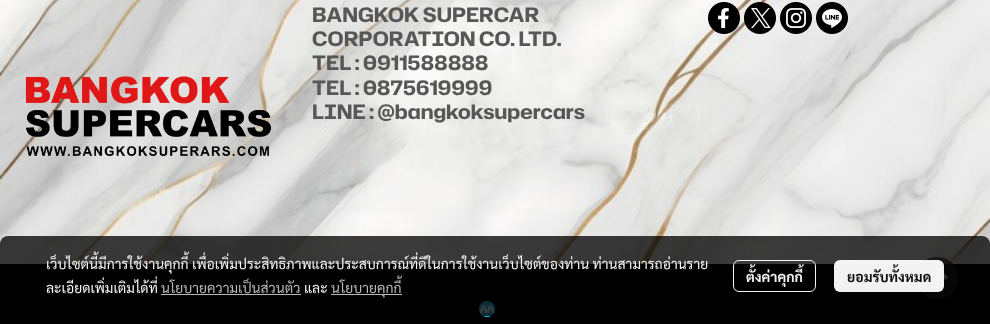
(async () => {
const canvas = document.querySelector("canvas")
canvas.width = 990
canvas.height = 324
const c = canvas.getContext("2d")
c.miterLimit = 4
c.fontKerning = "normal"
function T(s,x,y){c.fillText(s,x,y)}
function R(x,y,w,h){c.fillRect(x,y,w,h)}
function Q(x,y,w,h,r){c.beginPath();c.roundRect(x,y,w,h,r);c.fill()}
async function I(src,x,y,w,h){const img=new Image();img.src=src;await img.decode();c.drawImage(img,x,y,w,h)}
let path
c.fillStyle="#fff"
R(0,0,990,324)
await I("1.png",0,0,990,264)
await I("2.png",25,76,247,81)
c.font="200 20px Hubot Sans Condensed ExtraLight"
c.fillStyle="#575757"
T("BANGKOK SUPERCAR",312,22)
T("CORPORATION CO. LTD.",312,46)
T("TEL : 0911588888",312,70)
T("TEL : 0875619999",312,95)
T("LINE : @bangkoksupercars",312,119)
await I("3.png",708,2,32,32)
await I("4.png",744,2,32,32)
await I("5.png",780,2,32,32)
await I("6.png",816,2,32,32)
c.fillStyle="#000"
R(0,264,990,60)
c.fillStyle="#2b2a2ab3"
path = new Path2D("M937 257c-28 0-28 42 0 42c28 0 28-42 0-42z")
c.fill(path)
await I("7.png",926,266,22,23)
await I("8.png",479,301,16,16)
c.fillStyle="#000000c2"
Q(0,236,990,80,8)
c.font="14px Sarabun"
c.fillStyle="#f4f4f4"
T("เว็บไซต์นี้มีการใช้งานคุกกี้ เพื่อเพิ่มประสิทธิภาพและประสบการณ์ที่ดีในการใช้งานเว็บไซต์ของท่าน ท่านสามารถอ่านราย",46,269)
T("ละเอียดเพิ่มเติมได้ที่",46,293)
c.fillStyle="#b8b8b8"
T("นโยบายความเป็นส่วนตัว",161,293)
c.fillStyle="#f4f4f4"
T("และ",304,293)
c.fillStyle="#b8b8b8"
R(161,294,140,1)
R(331,294,71,1)
T("นโยบายคุกกี้",331,293)
c.beginPath()
c.roundRect(733.5,260.5,82,31,5.5)
c.strokeStyle="#fffffff2"
c.stroke()
c.font="bold 14px Sarabun"
c.fillStyle="#f4f4f4"
T("ตั้งค่าคุกกี้",746,282)
c.fillStyle="#fffffff2"
Q(834,260,110,32,6)
c.fillStyle="#0c0c0c"
T("ยอมรับทั้งหมด",847,282)
})()
